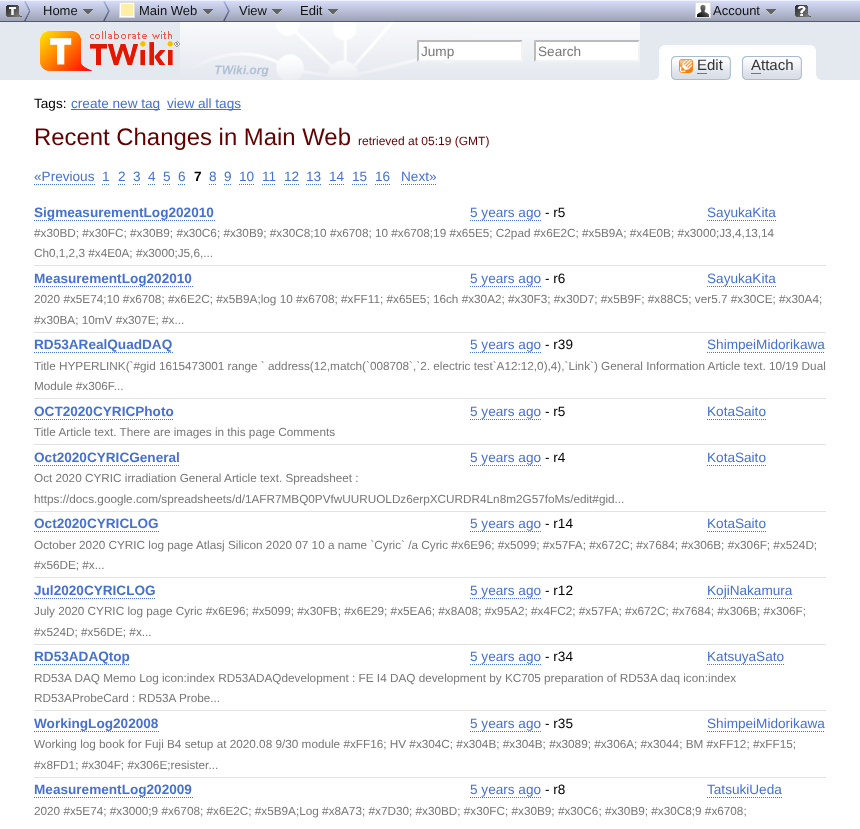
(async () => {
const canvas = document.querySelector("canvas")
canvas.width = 860
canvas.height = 829
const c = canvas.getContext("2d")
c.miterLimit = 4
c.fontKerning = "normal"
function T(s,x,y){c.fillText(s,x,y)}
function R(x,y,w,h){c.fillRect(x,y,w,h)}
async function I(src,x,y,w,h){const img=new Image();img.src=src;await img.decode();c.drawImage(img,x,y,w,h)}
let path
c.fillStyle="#fff"
R(0,0,860,829)
c.fillStyle="#e4e9f0"
R(0,22,860,58)
await I("1.png",0,0,6,22)
await I("2.png",6,0,854,22)
await I("3.png",6,1,25,20)
c.font="13px Liberation Sans"
c.fillStyle="#111"
T("Home",43,15)
await I("4.png",82,9,12,6)
await I("5.png",103,1,7,20)
c.fillStyle="#ffefa6"
R(121,4,12,12)
await I("6.png",119,2,16,16)
c.fillStyle="#111"
T("Main Web",139,15)
await I("7.png",202,9,12,6)
await I("5.png",223,1,7,20)
T("View",239,15)
await I("4.png",271,9,12,6)
T("Edit",300,15)
await I("8.png",327,9,12,6)
await I("9.png",687,20,99,2)
await I("10.png",695,2,16,16)
T("Account",713,15)
await I("11.png",765,9,12,6)
await I("12.png",795,5,16,12)
await I("13.png",40,31,140,40)
await I("14.png",180,22,460,58)
c.fillStyle="#fff"
R(417,40,106,22)
c.fillStyle="#bbb"
path = new Path2D("M417 40h106l-2 2h-102z")
c.fill(path)
c.fillStyle="#f2f2f2"
path = new Path2D("M523 40v22l-2-2v-18z")
c.fill(path)
path = new Path2D("M523 62h-106l2-2h102z")
c.fill(path)
c.fillStyle="#bbb"
path = new Path2D("M417 62v-22l2 2v18z")
c.fill(path)
c.font="13.6px Liberation Sans"
c.fillStyle="#777"
T("Jump",421,56)
c.fillStyle="#fff"
R(534,40,106,22)
c.fillStyle="#bbb"
path = new Path2D("M534 40h106l-2 2h-102z")
c.fill(path)
c.fillStyle="#f2f2f2"
path = new Path2D("M640 40v22l-2-2v-18z")
c.fill(path)
path = new Path2D("M640 62h-106l2-2h102z")
c.fill(path)
c.fillStyle="#bbb"
path = new Path2D("M534 62v-22l2 2v18z")
c.fill(path)
c.fillStyle="#777"
T("Search",538,56)
await I("15.png",655,45,165,35)
await I("16.png",671,56,60,24)
await I("17.png",679,59,14,14)
c.font="15px Liberation Sans"
c.fillStyle="#333"
T("Edit",697,70)
c.fillStyle="#777"
R(697,73,10,1)
await I("16.png",742,56,60,24)
c.fillStyle="#333"
T("Attach",751,70)
c.fillStyle="#777"
R(751,73,10,1)
c.font="13.6px Liberation Sans"
c.fillStyle="#000"
T("Tags:",34,108)
c.fillStyle="#4571d0"
R(71,109,89,1)
T("create new tag",71,108)
R(167,109,74,1)
T("view all tags",167,108)
c.font="23.9px Liberation Sans"
c.fillStyle="#630000"
T("Recent Changes in Main Web",34,145)
c.font="12px Liberation Sans"
T("retrieved at 05:19 (GMT)",358,145)
c.font="13.6px Liberation Sans"
c.fillStyle="#4571d0"
T("«Previous",34,181)
path = new Path2D("M34 184.5h61")
c.strokeStyle="#4571d0"
c.setLineDash([1,1])
c.stroke(path)
T("1",102,181)
path = new Path2D("M102 184.5h8")
c.stroke(path)
T("2",118,181)
path = new Path2D("M118 184.5h1m1 0h1m1 0h1m1 0h1")
c.setLineDash([])
c.stroke(path)
T("3",133,181)
path = new Path2D("M133 184.5h1m1 0h1m1 0h1m1 0h1")
c.stroke(path)
T("4",148,181)
path = new Path2D("M148 184.5h8")
c.setLineDash([1,1])
c.stroke(path)
T("5",163,181)
path = new Path2D("M163 184.5h8")
c.stroke(path)
T("6",178,181)
path = new Path2D("M178 184.5h8")
c.stroke(path)
c.font="bold 13.6px Liberation Sans"
c.fillStyle="#000"
T("7",194,181)
c.font="13.6px Liberation Sans"
c.fillStyle="#4571d0"
T("8",209,181)
path = new Path2D("M209 184.5h1m1 0h1m1 0h1m1 0h1")
c.setLineDash([])
c.stroke(path)
T("9",224,181)
path = new Path2D("M224 184.5h1m1 0h1m1 0h1m1 0h1")
c.stroke(path)
T("10",239,181)
path = new Path2D("M239 184.5h15")
c.setLineDash([1,1])
c.stroke(path)
T("11",262,181)
path = new Path2D("M262 184.5h14")
c.stroke(path)
T("12",284,181)
path = new Path2D("M284 184.5h15")
c.stroke(path)
T("13",306,181)
path = new Path2D("M306 184.5h16")
c.stroke(path)
T("14",329,181)
path = new Path2D("M329 184.5h15")
c.stroke(path)
T("15",352,181)
path = new Path2D("M352 184.5h15")
c.stroke(path)
T("16",375,181)
path = new Path2D("M375 184.5h15")
c.stroke(path)
T("Next»",401,181)
path = new Path2D("M401 184.5h36")
c.stroke(path)
c.font="bold 13.6px Liberation Sans"
T("SigmeasurementLog202010",34,217)
path = new Path2D("M34 220.5h181")
c.stroke(path)
c.font="13.6px Liberation Sans"
T("5 years ago",470,217)
path = new Path2D("M470 220.5h71")
c.stroke(path)
c.fillStyle="#000"
T("- r5",545,217)
c.fillStyle="#4571d0"
T("SayukaKita",707,217)
path = new Path2D("M707 220.5h69")
c.stroke(path)
c.fillStyle="#e2e2e2"
R(34,265,792,1)
c.font="11.75px Liberation Sans"
c.fillStyle="#777"
T("#x30BD; #x30FC; #x30B9; #x30C6; #x30B9; #x30C8;10 #x6708; 10 #x6708;19 #x65E5; C2pad #x6E2C; #x5B9A; #x4E0B; #x3000;J3,4,13,14",34,237)
T("Ch0,1,2,3 #x4E0A; #x3000;J5,6,...",34,257)
c.font="bold 13.6px Liberation Sans"
c.fillStyle="#4571d0"
T("MeasurementLog202010",34,283)
path = new Path2D("M34 286.5h159")
c.stroke(path)
c.font="13.6px Liberation Sans"
T("5 years ago",470,283)
path = new Path2D("M470 286.5h71")
c.stroke(path)
c.fillStyle="#000"
T("- r6",545,283)
c.fillStyle="#4571d0"
T("SayukaKita",707,283)
path = new Path2D("M707 286.5h69")
c.stroke(path)
c.fillStyle="#e2e2e2"
R(34,332,792,1)
c.font="11.75px Liberation Sans"
c.fillStyle="#777"
T("2020 #x5E74;10 #x6708; #x6E2C; #x5B9A;log 10 #x6708; #xFF11; #x65E5; 16ch #x30A2; #x30F3; #x30D7; #x5B9F; #x88C5; ver5.7 #x30CE; #x30A4;",34,303)
T("#x30BA; 10mV #x307E; #x...",34,324)
c.font="bold 13.6px Liberation Sans"
c.fillStyle="#4571d0"
T("RD53ARealQuadDAQ",34,349)
path = new Path2D("M34 352.5h139")
c.stroke(path)
c.font="13.6px Liberation Sans"
T("5 years ago",470,349)
path = new Path2D("M470 352.5h71")
c.stroke(path)
c.fillStyle="#000"
T("- r39",545,349)
c.fillStyle="#4571d0"
T("ShimpeiMidorikawa",707,349)
path = new Path2D("M707 352.5h118")
c.stroke(path)
c.fillStyle="#e2e2e2"
R(34,398,792,1)
c.font="11.75px Liberation Sans"
c.fillStyle="#777"
T("Title HYPERLINK(`#gid 1615473001 range ` address(12,match(`008708`,`2. electric test`A12:12,0),4),`Link`) General Information Article text. 10/19 Dual",34,370)
T("Module #x306F...",34,390)
c.font="bold 13.6px Liberation Sans"
c.fillStyle="#4571d0"
T("OCT2020CYRICPhoto",34,416)
path = new Path2D("M34 419.5h140")
c.stroke(path)
c.font="13.6px Liberation Sans"
T("5 years ago",470,416)
path = new Path2D("M470 419.5h71")
c.stroke(path)
c.fillStyle="#000"
T("- r5",545,416)
c.fillStyle="#4571d0"
T("KotaSaito",707,416)
path = new Path2D("M707 419.5h59")
c.stroke(path)
c.fillStyle="#e2e2e2"
R(34,444,792,1)
c.font="11.75px Liberation Sans"
c.fillStyle="#777"
T("Title Article text. There are images in this page Comments",34,436)
c.font="bold 13.6px Liberation Sans"
c.fillStyle="#4571d0"
T("Oct2020CYRICGeneral",34,462)
path = new Path2D("M34 465.5h146")
c.stroke(path)
c.font="13.6px Liberation Sans"
T("5 years ago",470,462)
path = new Path2D("M470 465.5h71")
c.stroke(path)
c.fillStyle="#000"
T("- r4",545,462)
c.fillStyle="#4571d0"
T("KotaSaito",707,462)
path = new Path2D("M707 465.5h59")
c.stroke(path)
c.fillStyle="#e2e2e2"
R(34,511,792,1)
c.font="11.75px Liberation Sans"
c.fillStyle="#777"
T("Oct 2020 CYRIC irradiation General Article text. Spreadsheet :",34,482)
T("https://docs.google.com/spreadsheets/d/1AFR7MBQ0PVfwUURUOLDz6erpXCURDR4Ln8m2G57foMs/edit#gid...",34,503)
c.font="bold 13.6px Liberation Sans"
c.fillStyle="#4571d0"
T("Oct2020CYRICLOG",34,528)
path = new Path2D("M34 531.5h125")
c.stroke(path)
c.font="13.6px Liberation Sans"
T("5 years ago",470,528)
path = new Path2D("M470 531.5h71")
c.stroke(path)
c.fillStyle="#000"
T("- r14",545,528)
c.fillStyle="#4571d0"
T("KotaSaito",707,528)
path = new Path2D("M707 531.5h59")
c.stroke(path)
c.fillStyle="#e2e2e2"
R(34,577,792,1)
c.font="11.75px Liberation Sans"
c.fillStyle="#777"
T("October 2020 CYRIC log page Atlasj Silicon 2020 07 10 a name `Cyric` /a Cyric #x6E96; #x5099; #x57FA; #x672C; #x7684; #x306B; #x306F; #x524D;",34,549)
T("#x56DE; #x...",34,569)
c.font="bold 13.6px Liberation Sans"
c.fillStyle="#4571d0"
T("Jul2020CYRICLOG",34,595)
path = new Path2D("M34 598.5h122")
c.stroke(path)
c.font="13.6px Liberation Sans"
T("5 years ago",470,595)
path = new Path2D("M470 598.5h71")
c.stroke(path)
c.fillStyle="#000"
T("- r12",545,595)
c.fillStyle="#4571d0"
T("KojiNakamura",707,595)
path = new Path2D("M707 598.5h86")
c.stroke(path)
c.fillStyle="#e2e2e2"
R(34,644,792,1)
c.font="11.75px Liberation Sans"
c.fillStyle="#777"
T("July 2020 CYRIC log page Cyric #x6E96; #x5099; #x30FB; #x6E29; #x5EA6; #x8A08; #x95A2; #x4FC2; #x57FA; #x672C; #x7684; #x306B; #x306F;",34,615)
T("#x524D; #x56DE; #x...",34,636)
c.font="bold 13.6px Liberation Sans"
c.fillStyle="#4571d0"
T("RD53ADAQtop",34,661)
path = new Path2D("M34 664.5h96")
c.stroke(path)
c.font="13.6px Liberation Sans"
T("5 years ago",470,661)
path = new Path2D("M470 664.5h71")
c.stroke(path)
c.fillStyle="#000"
T("- r34",545,661)
c.fillStyle="#4571d0"
T("KatsuyaSato",707,661)
path = new Path2D("M707 664.5h77")
c.stroke(path)
c.fillStyle="#e2e2e2"
R(34,710,792,1)
c.font="11.75px Liberation Sans"
c.fillStyle="#777"
T("RD53A DAQ Memo Log icon:index RD53ADAQdevelopment : FE I4 DAQ development by KC705 preparation of RD53A daq icon:index",34,682)
T("RD53AProbeCard : RD53A Probe...",34,702)
c.font="bold 13.6px Liberation Sans"
c.fillStyle="#4571d0"
T("WorkingLog202008",34,728)
path = new Path2D("M34 731.5h125")
c.stroke(path)
c.font="13.6px Liberation Sans"
T("5 years ago",470,728)
path = new Path2D("M470 731.5h71")
c.stroke(path)
c.fillStyle="#000"
T("- r35",545,728)
c.fillStyle="#4571d0"
T("ShimpeiMidorikawa",707,728)
path = new Path2D("M707 731.5h118")
c.stroke(path)
c.fillStyle="#e2e2e2"
R(34,777,792,1)
c.font="11.75px Liberation Sans"
c.fillStyle="#777"
T("Working log book for Fuji B4 setup at 2020.08 9/30 module #xFF16; HV #x304C; #x304B; #x304B; #x3089; #x306A; #x3044; BM #xFF12; #xFF15;",34,748)
T("#x8FD1; #x304F; #x306E;resister...",34,769)
c.font="bold 13.6px Liberation Sans"
c.fillStyle="#4571d0"
T("MeasurementLog202009",34,794)
path = new Path2D("M34 797.5h159")
c.stroke(path)
c.font="13.6px Liberation Sans"
T("5 years ago",470,794)
path = new Path2D("M470 797.5h71")
c.stroke(path)
c.fillStyle="#000"
T("- r8",545,794)
c.fillStyle="#4571d0"
T("TatsukiUeda",707,794)
path = new Path2D("M707 797.5h75")
c.stroke(path)
c.font="11.75px Liberation Sans"
c.fillStyle="#777"
T("2020 #x5E74; #x3000;9 #x6708; #x6E2C; #x5B9A;Log #x8A73; #x7D30; #x30BD; #x30FC; #x30B9; #x30C6; #x30B9; #x30C8;9 #x6708;",34,815)
})()
